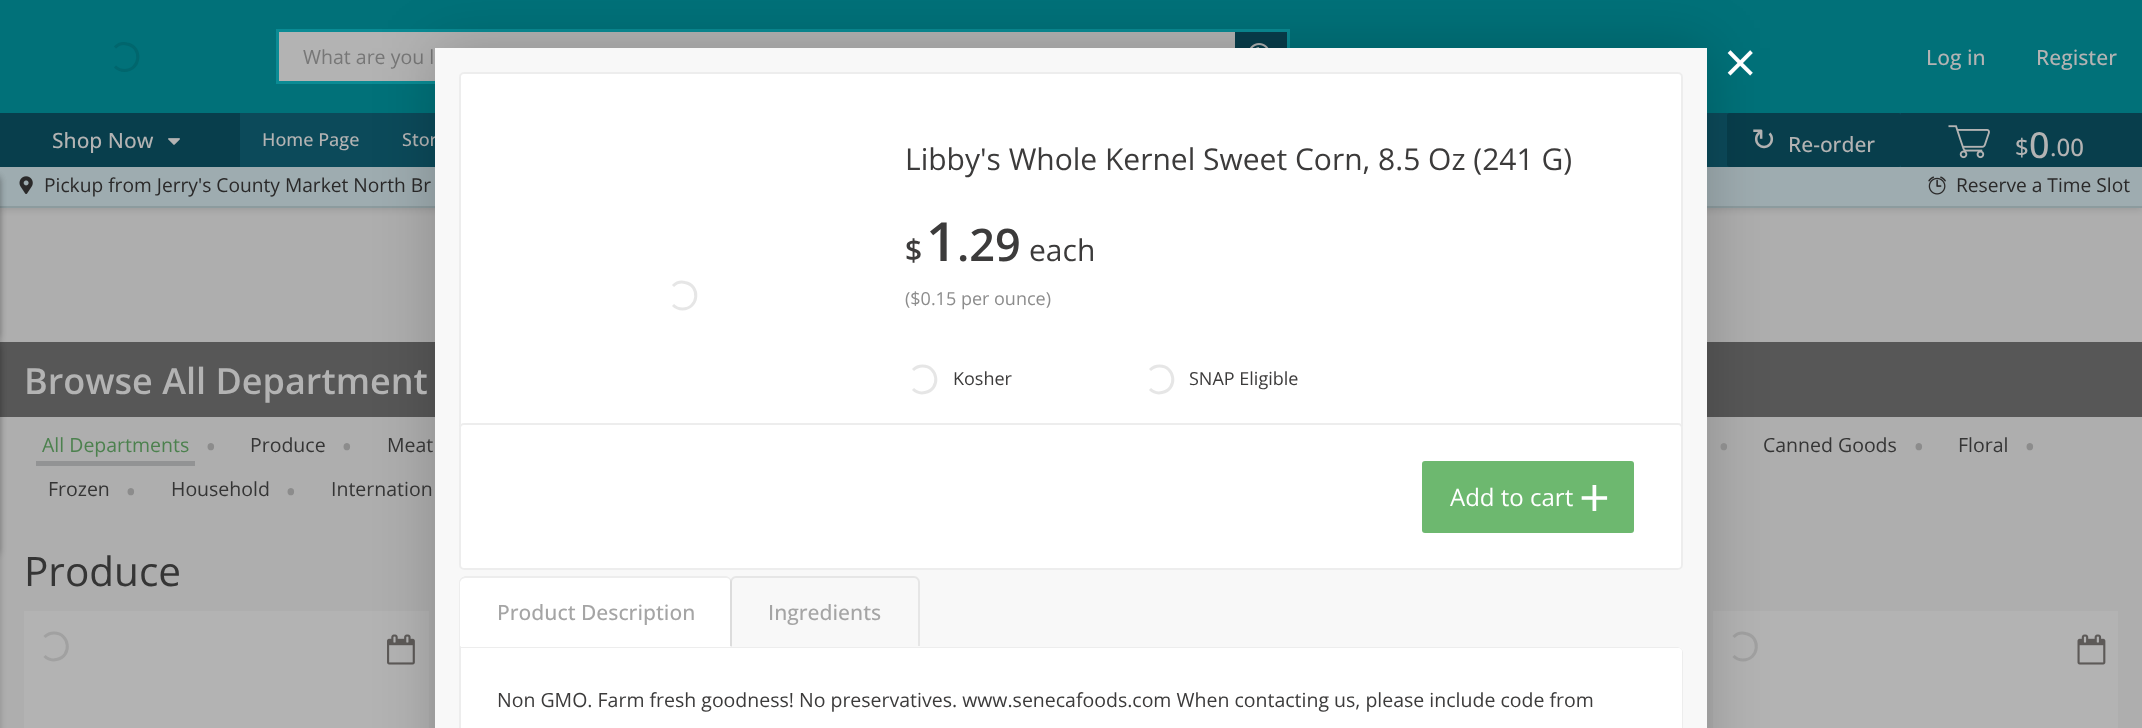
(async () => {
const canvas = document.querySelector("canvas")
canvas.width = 2142
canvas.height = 728
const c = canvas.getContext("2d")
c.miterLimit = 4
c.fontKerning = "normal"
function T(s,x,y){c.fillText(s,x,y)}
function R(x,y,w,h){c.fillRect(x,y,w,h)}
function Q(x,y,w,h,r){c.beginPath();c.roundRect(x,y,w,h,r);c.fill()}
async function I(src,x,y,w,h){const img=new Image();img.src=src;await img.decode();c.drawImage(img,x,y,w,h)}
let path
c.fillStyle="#aeaeae"
R(0,0,2142,728)
c.fillStyle="#017179"
R(0,0,2142,113)
path = new Path2D("M115 47.5c3-3 8-4.5 12-3.5c16 3 13.5 26.5-2.5 26.5c-3.5 0-7-1.5-9.5-4")
c.strokeStyle="#01666d"
c.lineWidth=3
c.stroke(path)
c.fillStyle="#b3b3b3"
R(279,32,956,49)
c.strokeStyle="#0a8b94"
c.strokeRect(277.5,30.5,1011,52)
c.fillStyle="#083e4c"
R(1235,32,52,16)
await I("1.png",1250,43,19,5)
c.font="19.5px Open Sans"
c.fillStyle="#777"
T("What are you l",303,64)
c.font="500 21px Open Sans"
c.fillStyle="#b3b3b3"
T("Log in",1926,65)
T("Register",2036,65)
c.fillStyle="#0000001a"
c.filter="blur(3px)"
c.beginPath()
c.rect(0,170,2142,40)
c.fill()
c.filter="none"
c.fillStyle="#0c4a5a"
R(240,113,1661,54)
c.fillStyle="#083e4c"
R(0,113,240,54)
c.fillStyle="#b3b3b3"
T("Shop Now",52,148)
await I("2.png",168,138,12,7)
c.fillStyle="#9eacb0"
R(0,167,2142,39)
c.fillStyle="#8c9b9e"
R(0,206,2142,2)
c.fillStyle="#575757"
R(0,342,2142,75)
c.fillStyle="#00000033"
c.filter="blur(3px)"
c.beginPath()
c.roundRect(-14,176,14,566,5)
c.fill()
c.filter="none"
c.filter="blur(3px)"
c.beginPath()
c.roundRect(-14,176,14,163,5)
c.fill()
c.filter="none"
c.filter="blur(3px)"
c.beginPath()
c.roundRect(-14,345,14,210,5)
c.fill()
c.filter="none"
c.font="500 18px Open Sans"
c.fillStyle="#b3b3b3"
T("Home Page",262,146)
T("Stor",402,146)
c.fillStyle="#083e4c"
Q(1727,113,174,54,3)
c.font="30px DejaVu Sans"
c.fillStyle="#b3b3b3"
T("↻",1751,150)
c.font="500 21px Open Sans"
T("Re-order",1788,152)
c.fillStyle="#083e4c"
R(1901,113,241,54)
await I("3.png",1948,125,42,34)
c.font="500 24px Open Sans"
c.fillStyle="#b3b3b3"
T("$",2015,156)
c.font="500 36px Open Sans"
T("0",2029,158)
c.font="500 24px Open Sans"
T(".00",2050,156)
await I("4.png",19,176,14,18)
c.font="19.2px Open Sans"
c.fillStyle="#2a2929"
T("Pickup from Jerry's County Market North Br",44,192)
await I("5.png",1928,176,18,19)
T("Reserve a Time Slot",1956,192)
c.fillStyle="#b3b3b3"
R(24,611,405,117)
await I("6.png",387,634,28,31)
R(1713,611,405,117)
path = new Path2D("M1733.5 637c3-3 8-4.5 12-3.5c16 3 13.5 26.5-2.5 26.5c-3.5 0-7-1.5-9.5-4")
c.strokeStyle="#a1a1a1"
c.stroke(path)
c.fillStyle="#00000033"
c.filter="blur(30px)"
c.beginPath()
c.rect(435,48,1272,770)
c.fill()
c.filter="none"
c.fillStyle="#f8f8f8"
R(435,48,1272,680)
c.font="57px Open Sans"
c.fillStyle="#fff"
T("×",1724,83)
Q(459,72,1224,444,5)
c.beginPath()
c.roundRect(460,73,1222,442,4)
c.strokeStyle="#00000012"
c.lineWidth=2
c.stroke()
c.font="30px Open Sans"
c.fillStyle="#3c3b3b"
T("Libby's Whole Kernel Sweet Corn, 8.5 Oz (241 G)",905,170)
c.font="600 30px Open Sans"
T("$",905,261)
c.font="600 54px Open Sans"
T("1",926,261)
c.font="600 45px Open Sans"
T(".29",957,261)
c.font="30px Open Sans"
T("each",1029,261)
path = new Path2D("M673 286c3-3 8-4.5 12-3.5c16 3 13.5 26.5-2.5 26.5c-3.5 0-7-1.5-9.5-4")
c.strokeStyle="#e6e6e6"
c.lineWidth=3
c.stroke(path)
c.font="18px Open Sans"
c.fillStyle="#8c8c8c"
T("($0.15 per ounce)",905,305)
path = new Path2D("M913 370c2.5-2.5 6-4 9.5-4c16 0 18.5 23.5 2.5 26.5c-4 1-9-.5-12-3.5")
c.stroke(path)
c.fillStyle="#3c3b3b"
T("Kosher",953,385)
path = new Path2D("M1150 370c2.5-2.5 6-4 9.5-4c16 0 18.5 23.5 2.5 26.5c-4 1-9-.5-12-3.5")
c.stroke(path)
T("SNAP Eligible",1189,385)
c.fillStyle="#fff"
Q(459,423,1224,147,5)
c.beginPath()
c.roundRect(460,424,1222,145,4)
c.strokeStyle="#00000012"
c.lineWidth=2
c.stroke()
c.fillStyle="#6db86f"
Q(1422,461,212,72,3)
c.font="24px Open Sans"
c.fillStyle="#fff"
T("Add to cart",1450,506)
c.font="54px Open Sans"
T("+",1579,517)
c.beginPath()
c.roundRect(459,576,273,74,[6,6,0,0])
c.fill()
c.fillStyle="#ededed"
path = new Path2D("M465 576c-1 0-3 1-4 2l1 1l3-1h261c1 0 2 0 3 1l1-1c-1-1-2-2-4-2z")
c.fill(path)
c.fillStyle="#00000012"
path = new Path2D("M732 650v-68c0-2-1-3-2-4l-1 1c1 1 1 2 1 3v64z")
c.fill(path)
c.fillStyle="#fff"
path = new Path2D("M732 650h-273l2-4h269z")
c.fill(path)
c.fillStyle="#00000012"
path = new Path2D("M459 650l2-4h-1v-64l2-3l-1-1c-1 1-2 2-2 4z")
c.fill(path)
c.font="500 21px Open Sans"
c.fillStyle="#a5a5a5"
T("Product Description",497,620)
c.fillStyle="#00000012"
path = new Path2D("M736 576h178c3 0 6 3 6 6v64h-190v-64c0-3 3-6 6-6zm0 2h178c2 0 4 2 4 4v64h-186v-64c0-2 2-4 4-4z")
c.fill(path,"evenodd")
c.fillStyle="#a5a5a5"
T("Ingredients",768,620)
c.fillStyle="#fff"
path = new Path2D("M459 647h1219c3 0 5 2 5 5v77h-1224z")
c.fill(path)
path = new Path2D("M460 648h1218c2 0 4 2 4 4v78c0 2-2 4-4 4h-1214c-2 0-4-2-4-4z")
c.stroke(path)
path = new Path2D("M461 648h1218c1.5 0 3 1.5 3 3v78h-1221z")
c.fill(path)
c.font="19.5px Open Sans"
c.fillStyle="#3c3b3b"
T("Non GMO. Farm fresh goodness! No preservatives. www.senecafoods.com When contacting us, please include code from",497,707)
c.font="600 36px Open Sans"
c.fillStyle="#b3b3b3"
T("Browse All Department",24,394)
c.fillStyle="#929394"
R(36,461,159,5)
c.font="19.5px Open Sans"
c.fillStyle="#4c814e"
T("All Departments",42,452)
c.font="31px Open Sans"
c.fillStyle="#8c8c8c"
T("•",205,458)
c.font="19.5px Open Sans"
c.fillStyle="#353535"
T("Produce",250,452)
c.font="31px Open Sans"
c.fillStyle="#8c8c8c"
T("•",341,458)
c.font="19.5px Open Sans"
c.fillStyle="#353535"
T("Meat",387,452)
c.font="31px Open Sans"
c.fillStyle="#8c8c8c"
T("•",1718,458)
c.font="19.5px Open Sans"
c.fillStyle="#353535"
T("Canned Goods",1763,452)
c.font="31px Open Sans"
c.fillStyle="#8c8c8c"
T("•",1913,458)
c.font="19.5px Open Sans"
c.fillStyle="#353535"
T("Floral",1958,452)
c.font="31px Open Sans"
c.fillStyle="#8c8c8c"
T("•",2024,458)
c.font="19.5px Open Sans"
c.fillStyle="#353535"
T("Frozen",48,496)
c.font="31px Open Sans"
c.fillStyle="#8c8c8c"
T("•",125,503)
c.font="19.5px Open Sans"
c.fillStyle="#353535"
T("Household",171,496)
c.font="31px Open Sans"
c.fillStyle="#8c8c8c"
T("•",285,503)
c.font="19.5px Open Sans"
c.fillStyle="#353535"
T("Internation",331,496)
c.font="40.5px Open Sans"
T("Produce",24,586)
path = new Path2D("M44.5 637c2.5-2.5 6-4 9.5-4c16 0 18.5 23.5 2.5 26.5c-4 1-9-.5-12-3.5")
c.strokeStyle="#a1a1a1"
c.lineWidth=3
c.stroke(path)
await I("7.png",2077,634,29,31)
})()
